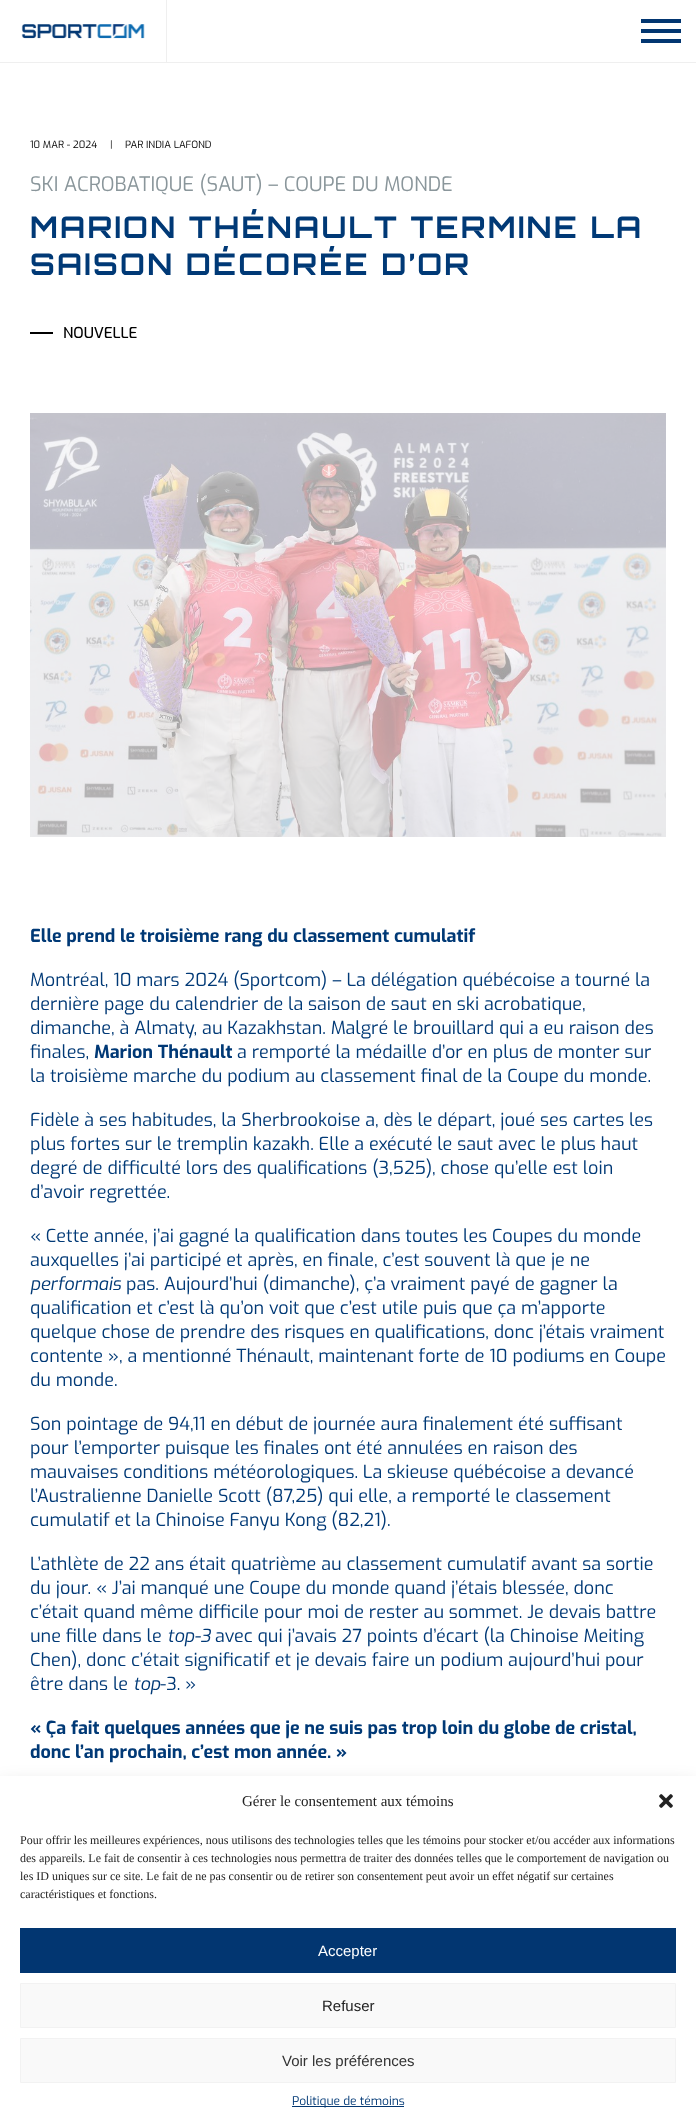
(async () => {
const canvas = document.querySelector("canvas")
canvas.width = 696
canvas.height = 2124
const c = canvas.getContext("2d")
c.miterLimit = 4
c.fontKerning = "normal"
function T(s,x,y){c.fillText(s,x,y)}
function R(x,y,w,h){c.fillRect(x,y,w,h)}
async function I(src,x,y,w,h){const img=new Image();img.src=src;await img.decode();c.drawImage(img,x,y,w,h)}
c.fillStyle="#fff"
R(0,0,696,2124)
c.fillStyle="#efefef"
R(0,62,696,1)
R(166,0,1,62)
await I("1.png",21,24,124,15)
c.fillStyle="#023671"
R(641,19,40,4)
R(641,29,40,4)
R(641,39,40,4)
c.font="10px Exo"
c.fillStyle="#000"
T("10 MAR - 2024",30,148)
T("|",110,148)
T("PAR INDIA LAFOND",125,148)
c.font="20px Exo"
c.fillStyle="#8a969b"
T("SKI ACROBATIQUE (SAUT) – COUPE DU MONDE",30,191)
c.letterSpacing="2.25px"
c.font="bold 30px Orbitron"
c.fillStyle="#003976"
T("MARION THÉNAULT TERMINE LA",30,238)
T("SAISON DÉCORÉE D’OR",30,275)
c.fillStyle="#000"
R(30,332,23,2)
c.letterSpacing="0px"
c.font="500 15px Exo"
T("NOUVELLE",63,338)
await I("2.png",30,413,636,424)
c.font="bold 18px Exo"
c.fillStyle="#003976"
T("Elle prend le troisième rang du classement cumulatif",30,942)
c.font="18px Exo"
T("Montréal, 10 mars 2024 (Sportcom) – La délégation québécoise a tourné la",30,986)
T("dernière page du calendrier de la saison de saut en ski acrobatique,",30,1010)
T("dimanche, à Almaty, au Kazakhstan. Malgré le brouillard qui a eu raison des",30,1034)
T("finales,",30,1058)
c.font="bold 18px Exo"
T("Marion Thénault",94,1058)
c.font="18px Exo"
T("a remporté la médaille d’or en plus de monter sur",237,1058)
T("la troisième marche du podium au classement final de la Coupe du monde.",30,1082)
T("Fidèle à ses habitudes, la Sherbrookoise a, dès le départ, joué ses cartes les",30,1126)
T("plus fortes sur le tremplin kazakh. Elle a exécuté le saut avec le plus haut",30,1150)
T("degré de difficulté lors des qualifications (3,525), chose qu’elle est loin",30,1174)
T("d’avoir regrettée.",30,1198)
T("« Cette année, j’ai gagné la qualification dans toutes les Coupes du monde",30,1242)
T("auxquelles j’ai participé et après, en finale, c’est souvent là que je ne",30,1266)
c.font="italic 18px Exo"
T("performais",30,1290)
c.font="18px Exo"
T("pas. Aujourd’hui (dimanche), ç’a vraiment payé de gagner la",126,1290)
T("qualification et c’est là qu’on voit que c’est utile puis que ça m’apporte",30,1314)
T("quelque chose de prendre des risques en qualifications, donc j’étais vraiment",30,1338)
T("contente », a mentionné Thénault, maintenant forte de 10 podiums en Coupe",30,1362)
T("du monde.",30,1386)
T("Son pointage de 94,11 en début de journée aura finalement été suffisant",30,1430)
T("pour l’emporter puisque les finales ont été annulées en raison des",30,1454)
T("mauvaises conditions météorologiques. La skieuse québécoise a devancé",30,1478)
T("l’Australienne Danielle Scott (87,25) qui elle, a remporté le classement",30,1502)
T("cumulatif et la Chinoise Fanyu Kong (82,21).",30,1526)
T("L’athlète de 22 ans était quatrième au classement cumulatif avant sa sortie",30,1570)
T("du jour. « J’ai manqué une Coupe du monde quand j’étais blessée, donc",30,1594)
T("c’était quand même difficile pour moi de rester au sommet. Je devais battre",30,1618)
T("une fille dans le",30,1642)
c.font="italic 18px Exo"
T("top-3",167,1642)
c.font="18px Exo"
T("avec qui j’avais 27 points d’écart (la Chinoise Meiting",215,1642)
T("Chen), donc c’était significatif et je devais faire un podium aujourd’hui pour",30,1666)
T("être dans le",30,1690)
c.font="italic 18px Exo"
T("top",133,1690)
c.font="18px Exo"
T("-3. »",160,1690)
c.font="bold 18px Exo"
T("« Ça fait quelques années que je ne suis pas trop loin du globe de cristal,",30,1734)
T("donc l’an prochain, c’est mon année. »",30,1758)
c.fillStyle="#00000030"
c.filter="blur(10px)"
c.beginPath()
c.rect(0,1786,696,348)
c.fill()
c.filter="none"
c.fillStyle="#fff"
R(0,1776,696,348)
c.font="15px Liberation Serif"
c.fillStyle="#222"
T("Gérer le consentement aux témoins",242,1806)
await I("3.png",659,1794,14,14)
c.font="12px Liberation Serif"
T("Pour offrir les meilleures expériences, nous utilisons des technologies telles que les témoins pour stocker et/ou accéder aux informations",20,1844)
T("des appareils. Le fait de consentir à ces technologies nous permettra de traiter des données telles que le comportement de navigation ou",20,1862)
T("les ID uniques sur ce site. Le fait de ne pas consentir ou de retirer son consentement peut avoir un effet négatif sur certaines",20,1880)
T("caractéristiques et fonctions.",20,1898)
c.fillStyle="#023671"
R(20,1928,656,45)
c.font="15px Liberation Sans"
c.fillStyle="#fff"
T("Accepter",318,1956)
c.fillStyle="#f9f9f9"
c.beginPath()
c.rect(20.5,1983.5,655,44)
c.fill()
c.strokeStyle="#f2f2f2"
c.stroke()
c.fillStyle="#222"
T("Refuser",322,2011)
c.fillStyle="#f9f9f9"
c.beginPath()
c.rect(20.5,2038.5,655,44)
c.fill()
c.stroke()
c.fillStyle="#333"
T("Voir les préférences",282,2066)
c.fillStyle="#023671"
R(292,2106,112,1)
c.font="12px Exo"
c.fillStyle="#003976"
T("Politique de témoins",292,2105)
})()
